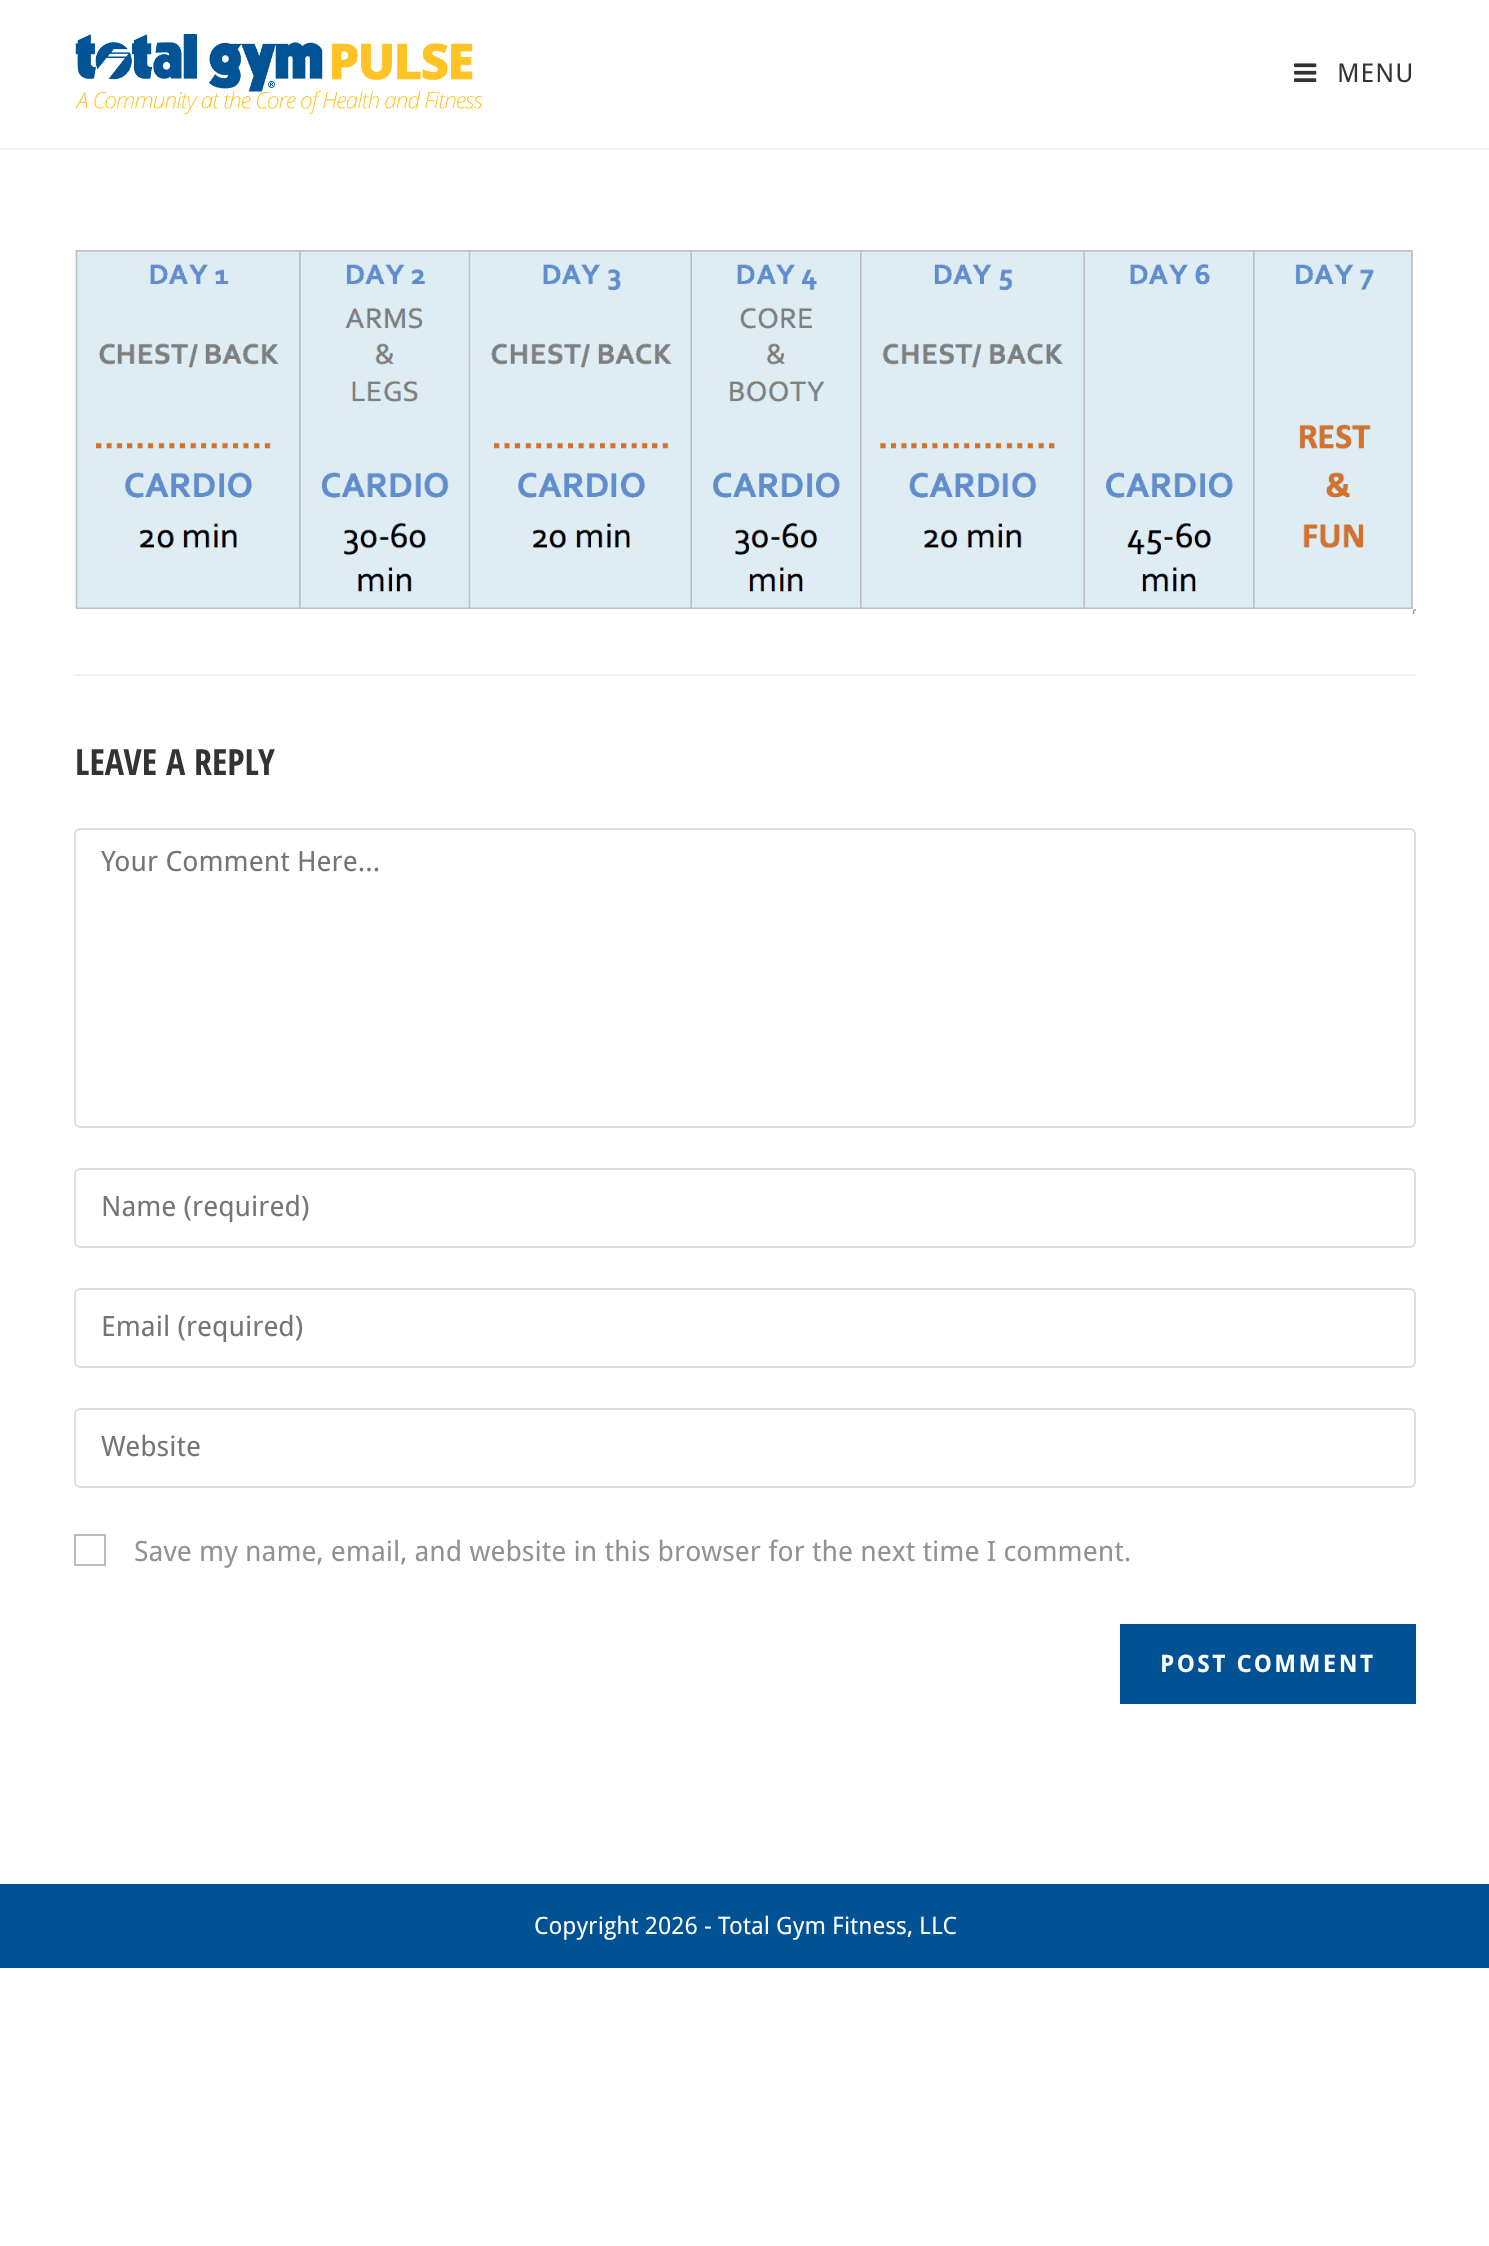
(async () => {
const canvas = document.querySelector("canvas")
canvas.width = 1489
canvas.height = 2246
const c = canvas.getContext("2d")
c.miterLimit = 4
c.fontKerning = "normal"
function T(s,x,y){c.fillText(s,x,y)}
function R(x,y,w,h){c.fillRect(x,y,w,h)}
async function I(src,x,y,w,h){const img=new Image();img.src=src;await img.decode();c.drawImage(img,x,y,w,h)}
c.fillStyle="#fff"
R(0,0,1489,2246)
c.fillStyle="#f1f1f1"
R(0,148,1489,2)
await I("1.png",75,34,408,80)
await I("2.png",1294,63,23,19)
c.letterSpacing="1px"
c.font="26px Droid Sans"
c.fillStyle="#333"
T("MENU",1337,82)
await I("3.png",75,250,1341,364)
c.fillStyle="#f1f1f1"
R(74,674,1342,2)
c.letterSpacing="0px"
c.font="bold 36px Open Sans Condensed"
c.fillStyle="#333"
T("LEAVE A REPLY",75,775)
c.beginPath()
c.roundRect(75,829,1340,298,5)
c.strokeStyle="#ddd"
c.lineWidth=2
c.stroke()
c.font="28px Droid Sans"
c.fillStyle="#757575"
T("Your Comment Here...",101,871)
c.beginPath()
c.roundRect(75,1169,1340,78,5)
c.stroke()
c.save()
c.beginPath()
c.rect(100,1190,1290,32)
c.clip()
T("Name (required)",101,1216)
c.restore()
c.beginPath()
c.roundRect(75,1289,1340,78,5)
c.stroke()
c.save()
c.beginPath()
c.rect(100,1310,1290,32)
c.clip()
T("Email (required)",101,1336)
c.restore()
c.beginPath()
c.roundRect(75,1409,1340,78,5)
c.stroke()
T("Website",101,1456)
c.strokeStyle="#bbb"
c.strokeRect(75,1535,30,30)
c.fillStyle="#929292"
T("Save my name, email, and website in this browser for the next time I comment.",134,1561)
c.fillStyle="#005295"
R(1120,1624,296,80)
c.letterSpacing="2.4px"
c.font="bold 24px Droid Sans"
c.fillStyle="#fff"
T("POST COMMENT",1160,1672)
c.fillStyle="#005295"
R(0,1884,1489,84)
c.letterSpacing="0px"
c.font="24px Droid Sans"
c.fillStyle="#fff"
T("Copyright 2026 - Total Gym Fitness, LLC",534,1934)
})()
